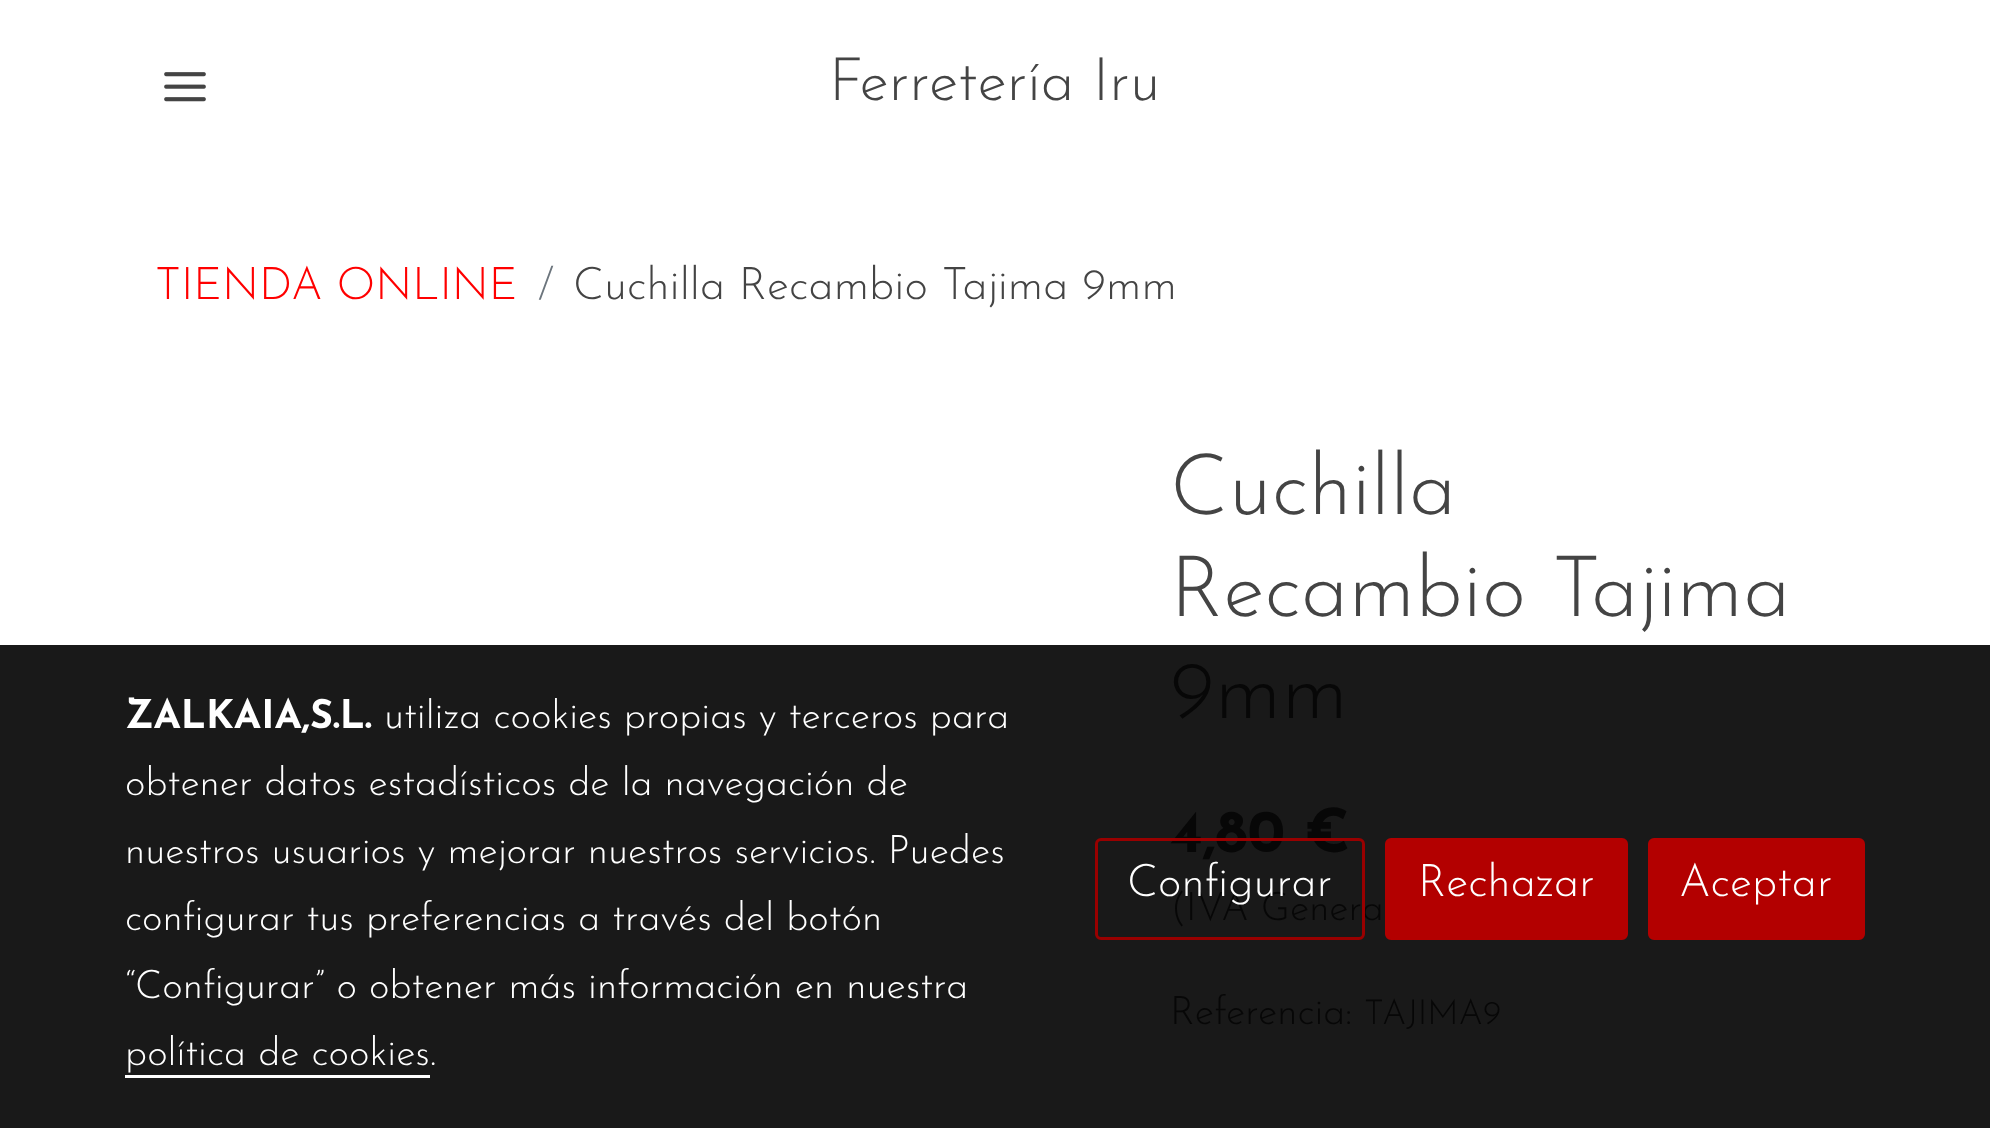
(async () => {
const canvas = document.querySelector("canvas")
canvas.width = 1990
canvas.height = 1128
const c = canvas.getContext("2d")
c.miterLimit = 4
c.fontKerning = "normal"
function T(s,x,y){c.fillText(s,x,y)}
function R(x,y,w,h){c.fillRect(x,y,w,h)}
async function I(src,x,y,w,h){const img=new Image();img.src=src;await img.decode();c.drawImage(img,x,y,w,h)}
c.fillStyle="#fff"
R(0,0,1990,1128)
c.fillStyle="#191919"
R(0,645,1990,483)
await I("1.png",164,72,42,30)
c.font="300 60px Josefin Sans"
c.fillStyle="#444"
T("Ferretería Iru",829,100)
c.font="300 45px Josefin Sans"
c.fillStyle="#f00"
T("TIENDA ONLINE",155,299)
c.fillStyle="#6c757d"
T("/",538,299)
c.fillStyle="#444"
T("Cuchilla Recambio Tajima 9mm",573,299)
c.font="300 84.75px Josefin Sans"
T("Cuchilla",1170,514)
T("Recambio Tajima",1170,616)
c.fillStyle="#070707"
T("9mm",1170,718)
c.font="bold 60px Josefin Sans"
T("4,80 €",1170,852)
c.font="300 39.4px Josefin Sans"
T("(IVA Genera",1170,920)
T("Referencia:",1170,1024)
c.font="300 34.5px Josefin Sans"
T("TAJIMA9",1364,1024)
c.font="bold 39.4px Josefin Sans"
c.fillStyle="#fff"
T("ZALKAIA,S.L.",125,728)
c.font="300 39.4px Josefin Sans"
T("utiliza cookies propias y terceros para",384,728)
T("obtener datos estadísticos de la navegación de",125,795)
T("nuestros usuarios y mejorar nuestros servicios. Puedes",125,863)
T("configurar tus preferencias a través del botón",125,930)
T("“Configurar” o obtener más información en nuestra",125,998)
T("política de cookies.",125,1065)
R(125,1075,305,3)
c.beginPath()
c.roundRect(1096.5,839.5,267,99,4.5)
c.strokeStyle="#900"
c.lineWidth=3
c.stroke()
c.font="300 45px Josefin Sans"
T("Configurar",1127,896)
c.fillStyle="#b30000"
c.beginPath()
c.roundRect(1386.5,839.5,240,99,4.5)
c.fill()
c.strokeStyle="#b30000"
c.stroke()
c.fillStyle="#fff"
T("Rechazar",1418,896)
c.fillStyle="#b30000"
c.beginPath()
c.roundRect(1649.5,839.5,214,99,4.5)
c.fill()
c.stroke()
c.fillStyle="#fff"
T("Aceptar",1679,896)
})()
